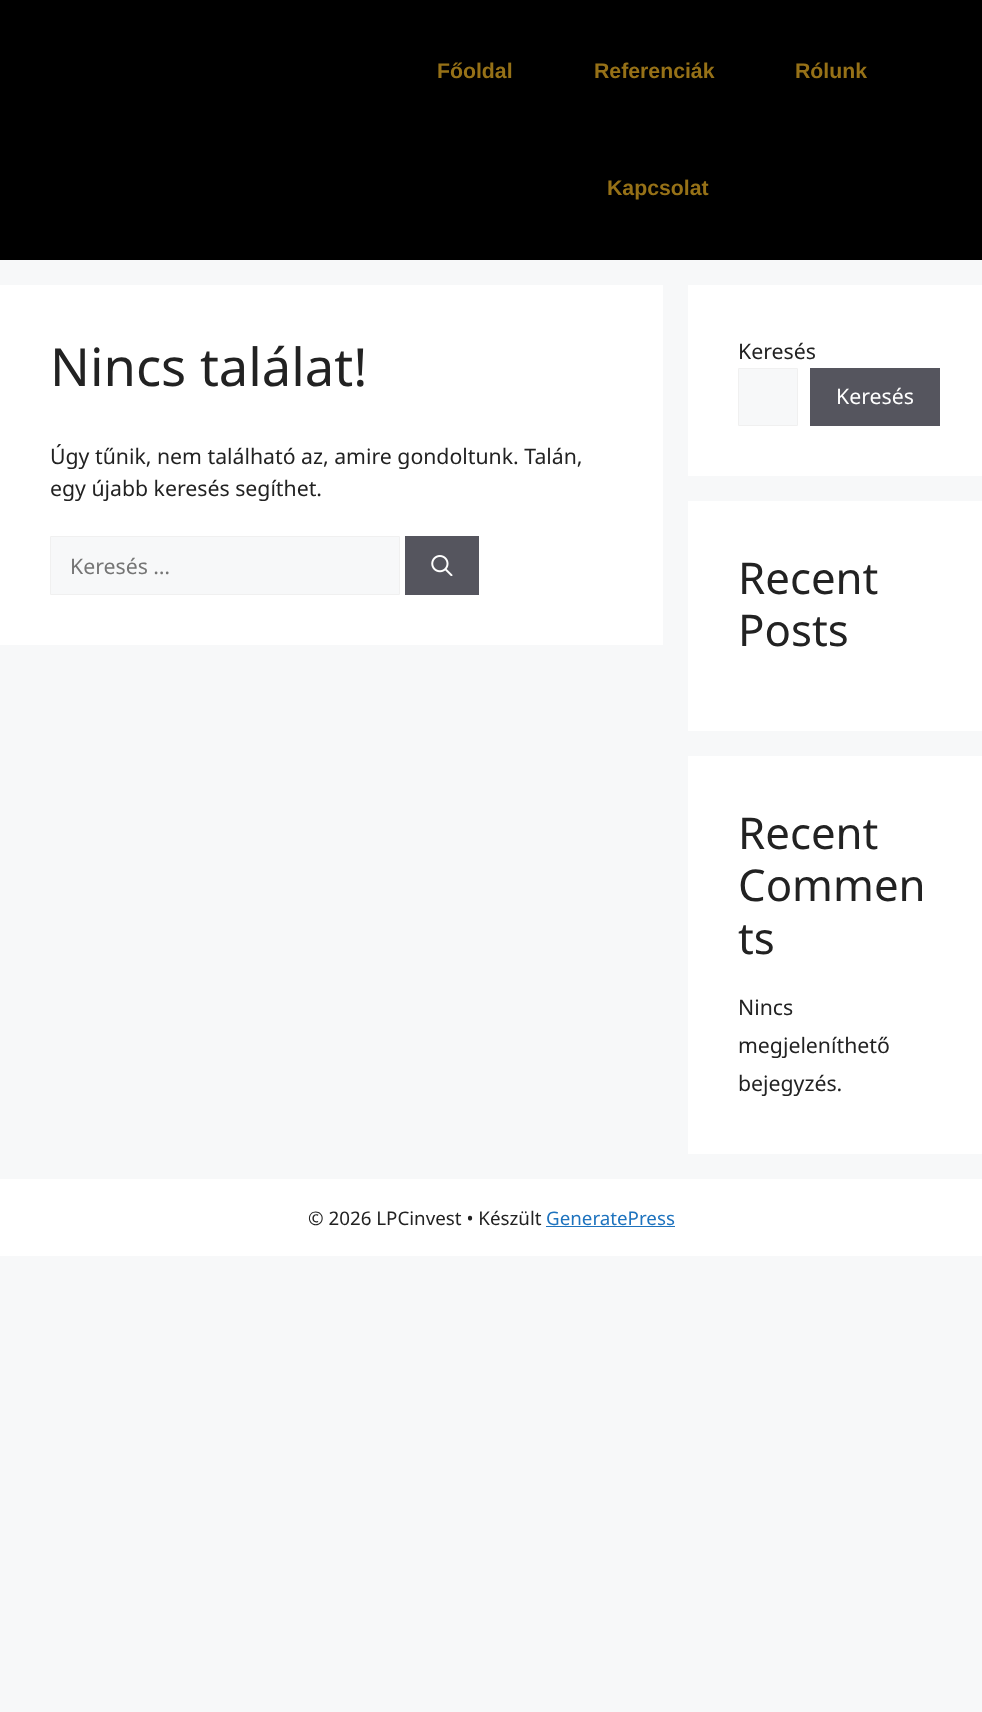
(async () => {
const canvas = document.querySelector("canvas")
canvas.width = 982
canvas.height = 1712
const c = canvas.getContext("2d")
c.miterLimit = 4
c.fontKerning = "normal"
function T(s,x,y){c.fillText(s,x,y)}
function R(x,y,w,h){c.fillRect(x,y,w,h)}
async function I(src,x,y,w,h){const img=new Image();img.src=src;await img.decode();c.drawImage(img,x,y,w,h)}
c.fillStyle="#f7f8f9"
R(0,0,982,1712)
c.fillStyle="#000"
R(0,0,982,260)
c.font="bold 21.25px Liberation Sans"
c.fillStyle="#967117"
T("Főoldal",437,78)
T("Referenciák",594,78)
T("Rólunk",795,78)
T("Kapcsolat",607,195)
c.fillStyle="#fff"
R(0,285,663,360)
c.font="52.5px Noto Sans"
c.fillStyle="#222"
T("Nincs találat!",50,386)
c.font="21.25px Noto Sans"
T("Úgy tűnik, nem található az, amire gondoltunk. Talán,",50,464)
T("egy újabb keresés segíthet.",50,496)
c.fillStyle="#f7f8f9"
c.beginPath()
c.rect(50.5,536.5,349,58)
c.fill()
c.strokeStyle="#f0f0f0"
c.stroke()
c.fillStyle="#757575"
T("Keresés …",70,574)
c.fillStyle="#55555e"
R(405,536,74,59)
await I("1.png",431,555,22,21)
c.fillStyle="#fff"
R(688,285,294,191)
c.fillStyle="#222"
T("Keresés",738,359)
c.fillStyle="#f7f8f9"
c.beginPath()
c.rect(738.5,368.5,59,57)
c.fill()
c.stroke()
c.fillStyle="#55555e"
R(810,368,130,58)
c.fillStyle="#fff"
T("Keresés",836,404)
R(688,501,294,230)
c.font="43.75px Noto Sans"
c.fillStyle="#222"
T("Recent",738,594)
T("Posts",738,646)
c.fillStyle="#fff"
R(688,756,294,398)
c.fillStyle="#222"
T("Recent",738,849)
T("Commen",738,901)
T("ts",738,954)
c.font="21.25px Noto Sans"
T("Nincs",738,1015)
T("megjeleníthető",738,1053)
T("bejegyzés.",738,1091)
c.fillStyle="#fff"
R(0,1179,982,77)
c.font="18.75px Noto Sans"
c.fillStyle="#222"
T("© 2026 LPCinvest • Készült",308,1225)
c.fillStyle="#1e73be"
T("GeneratePress",546,1225)
R(546,1226,129,1)
})()
